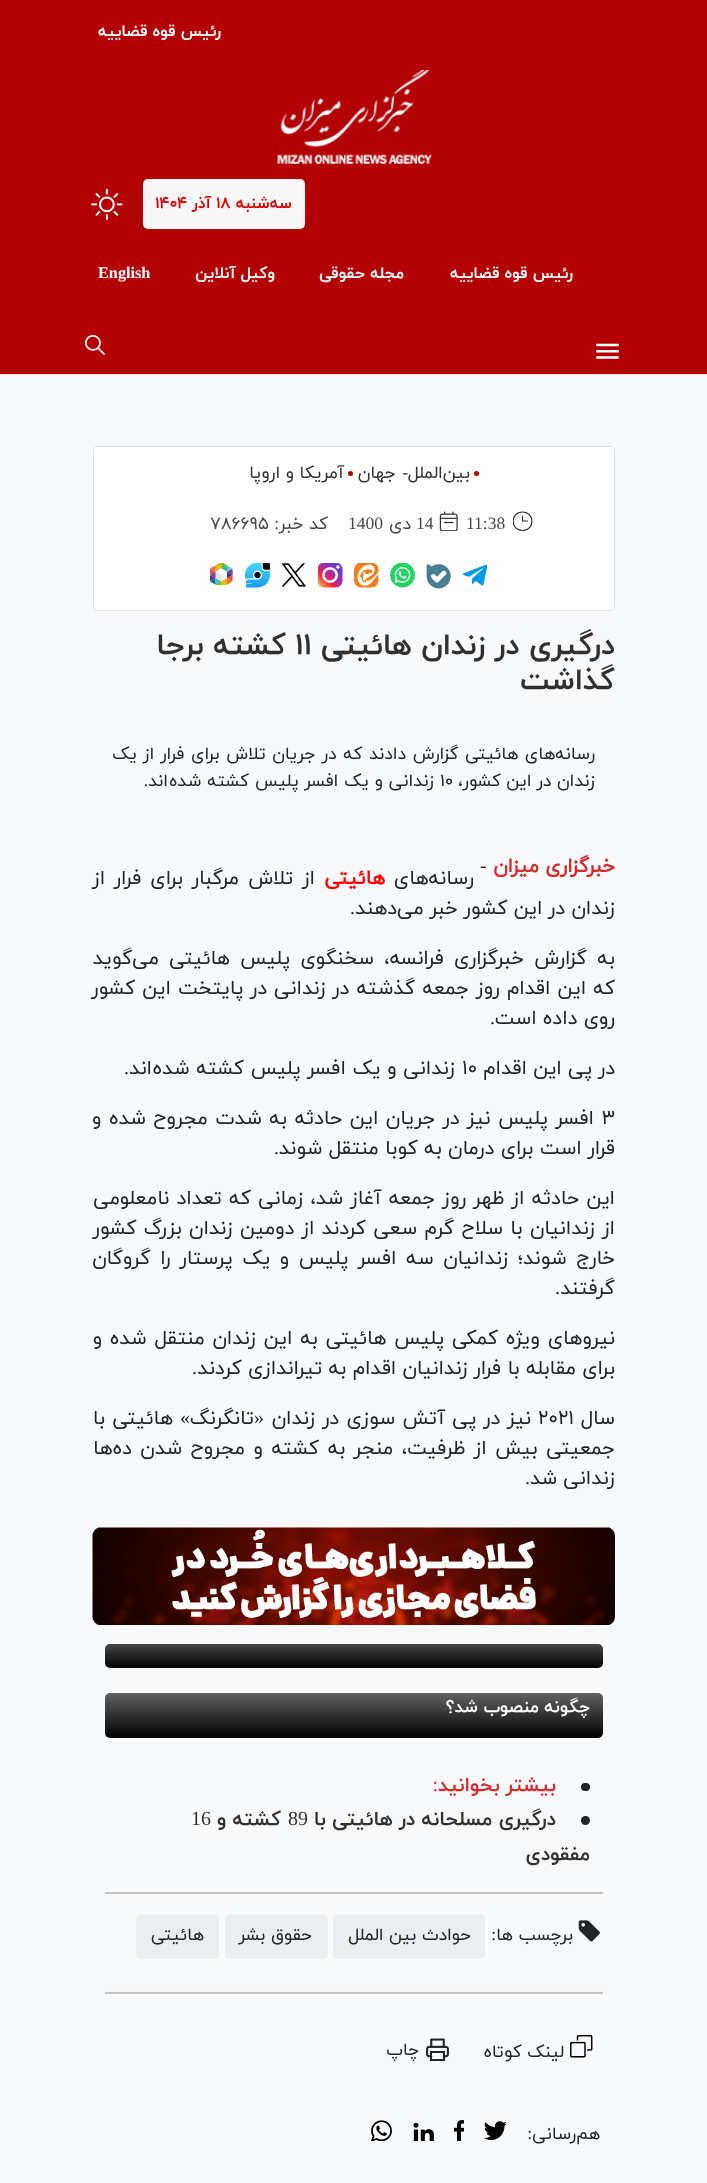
(async () => {
const canvas = document.querySelector("canvas")
canvas.width = 707
canvas.height = 2183
const c = canvas.getContext("2d")
c.miterLimit = 4
c.fontKerning = "normal"
function T(s,x,y){c.fillText(s,x,y)}
function R(x,y,w,h){c.fillRect(x,y,w,h)}
function Q(x,y,w,h,r){c.beginPath();c.roundRect(x,y,w,h,r);c.fill()}
async function I(src,x,y,w,h){const img=new Image();img.src=src;await img.decode();c.drawImage(img,x,y,w,h)}
let gradient, path
c.fillStyle="#f8f9fa"
R(0,0,707,2183)
c.fillStyle="#b20204"
R(0,0,707,374)
c.fillStyle="#dee2e6"
R(0,374,707,1)
c.direction="rtl"
c.font="bold 16.25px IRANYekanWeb"
c.fillStyle="#fff"
T("رئیس قوه قضاییه",221,36)
await I("1.png",277,70,155,94)
c.fillStyle="#f7f7f7"
Q(143,179,162,50,5)
c.fillStyle="#d30405"
T("سه‌شنبه",292,208)
c.direction="ltr"
T("۱۸",216,208)
c.direction="rtl"
T("آذر",211,208)
c.direction="ltr"
T("۱۴۰۴",155,208)
await I("2.png",91,189,32,31)
c.direction="rtl"
c.fillStyle="#fff"
T("رئیس قوه قضاییه",573,278)
T("مجله حقوقی",404,278)
T("وکیل آنلاین",275,278)
c.direction="ltr"
c.font="bold 16.25px Liberation Serif"
T("English",98,278)
await I("3.png",596,343,23,16)
await I("4.png",85,335,20,20)
c.beginPath()
c.roundRect(93.5,446.5,521,164,4.5)
c.fill()
c.strokeStyle="#dee2e6"
c.stroke()
c.fillStyle="#b20204"
c.beginPath()
c.arc(476.5,473.5,2.5,0,7)
c.fill()
c.direction="rtl"
c.font="17.5px IRANYekanWeb"
c.fillStyle="#313131"
T("بین‌الملل",470,478)
c.font="17.5px Liberation Serif"
T("-",408,478)
c.font="17.5px IRANYekanWeb"
T("جهان",396,478)
c.fillStyle="#b20204"
c.beginPath()
c.arc(350.5,473.5,2.5,0,7)
c.fill()
c.fillStyle="#313131"
T("آمریکا و اروپا",344,478)
c.save()
c.beginPath()
c.rect(513,511,20,20)
c.clip()
path = new Path2D("M522.5 516v5h5m-5 9.5c-12.5 0-12.5-18.5 0-18.5c12.5 0 12.5 18.5 0 18.5z")
c.strokeStyle="#303030"
c.lineWidth=1.2
c.lineCap="round"
c.lineJoin="round"
c.stroke(path)
c.restore()
c.direction="ltr"
c.font="17.5px Liberation Serif"
c.fillStyle="#45484b"
T("11:38",466,529)
await I("5.png",439,511,19,20)
T("14",416,529)
c.direction="rtl"
c.font="17.5px IRANYekanWeb"
T("دی",411,529)
c.direction="ltr"
c.font="17.5px Liberation Serif"
T("1400",348,529)
c.direction="rtl"
c.font="17.5px IRANYekanWeb"
T("کد خبر",328,529)
c.font="17.5px Liberation Serif"
T(":",279,529)
c.direction="ltr"
c.font="17.5px IRANYekanWeb"
T("۷۸۶۶۹۵",210,529)
await I("6.png",463,564,24,22)
await I("7.png",426,564,25,25)
await I("8.png",390,563,25,25)
await I("9.png",354,563,25,25)
await I("10.png",318,563,25,25)
await I("11.png",281,563,25,24)
await I("12.png",245,563,25,25)
await I("13.png",210,563,23,22)
c.direction="rtl"
c.font="bold 30px IRANYekanWeb"
c.fillStyle="#313131"
T("درگیری در زندان هائیتی",615,654)
c.direction="ltr"
T("۱۱",295,654)
c.direction="rtl"
T("کشته برجا",286,654)
T("گذاشت",615,689)
c.wordSpacing="1px"
c.font="17.5px IRANYekanWeb"
c.fillStyle="#212529"
T("رسانه‌های هائیتی گزارش دادند که در جریان تلاش برای فرار از یک",595,759)
c.wordSpacing="0px"
T("زندان در این کشور،",595,786)
c.direction="ltr"
T("۱۰",440,786)
c.wordSpacing="0.5px"
c.direction="rtl"
T("زندانی و یک افسر پلیس کشته شده",434,786)
c.wordSpacing="0px"
T("اند",168,786)
c.font="17.5px Liberation Serif"
T(".",148,786)
c.font="bold 20px 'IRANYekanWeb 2'"
c.fillStyle="#cf2e2e"
T("خبرگزاری میزان",615,872)
c.direction="ltr"
c.font="20px Liberation Serif"
c.fillStyle="#212529"
T("-",480,872)
c.direction="rtl"
c.font="20px IRANYekanWeb"
T("رسانه‌های",474,884)
c.font="bold 20px 'IRANYekanWeb 2'"
c.fillStyle="#f00"
T("هائیتی",385,884)
c.wordSpacing="2.75px"
c.font="20px IRANYekanWeb"
c.fillStyle="#212529"
T("از تلاش مرگبار برای فرار از",315,884)
c.wordSpacing="0px"
T("زندان در این کشور خبر می‌دهند",615,914)
c.font="20px Liberation Serif"
T(".",355,914)
c.wordSpacing="4px"
c.font="20px IRANYekanWeb"
T("به گزارش خبرگزاری فرانسه، سخنگوی پلیس هائیتی می‌گوید",615,964)
c.wordSpacing="0.75px"
T("که این اقدام روز جمعه گذشته در زندانی در پایتخت این کشور",615,994)
c.wordSpacing="0px"
T("روی داده است",615,1024)
c.font="20px Liberation Serif"
T(".",495,1024)
c.font="20px IRANYekanWeb"
T("در پی این اقدام",615,1074)
c.direction="ltr"
T("۱۰",462,1074)
c.wordSpacing="0.5px"
c.direction="rtl"
T("زندانی و یک افسر پلیس کشته شده",455,1074)
c.wordSpacing="0px"
T("اند",152,1074)
c.font="20px Liberation Serif"
T(".",129,1074)
c.direction="ltr"
c.font="20px IRANYekanWeb"
T("۳",602,1124)
c.wordSpacing="1.25px"
c.direction="rtl"
T("افسر پلیس نیز در جریان این حادثه به شدت مجروح شده و",594,1124)
c.wordSpacing="0px"
T("قرار است برای درمان به کوبا منتقل شوند",615,1154)
c.font="20px Liberation Serif"
T(".",279,1154)
c.wordSpacing="1px"
c.font="20px IRANYekanWeb"
T("این حادثه از ظهر روز جمعه آغاز شد، زمانی که تعداد نامعلومی",615,1204)
T("از زندانیان با سلاح گرم سعی کردند از دومین زندان بزرگ کشور",615,1234)
c.wordSpacing="3.25px"
T("خارج شوند؛ زندانیان سه افسر پلیس و یک پرستار را گروگان",615,1264)
c.wordSpacing="0px"
T("گرفتند",615,1294)
c.font="20px Liberation Serif"
T(".",560,1294)
c.wordSpacing="1.5px"
c.font="20px IRANYekanWeb"
T("نیرو‌های ویژه کمکی پلیس هائیتی به این زندان منتقل شده و",615,1344)
c.wordSpacing="0px"
T("برای مقابله با فرار زندانیان اقدام به تیراندازی کردند",615,1374)
c.font="20px Liberation Serif"
T(".",197,1374)
c.font="20px IRANYekanWeb"
T("سال",615,1424)
c.direction="ltr"
T("۲۰۲۱",538,1424)
c.wordSpacing="1px"
c.direction="rtl"
T("نیز در پی آتش سوزی در زندان",531,1424)
c.wordSpacing="0px"
c.font="20px Liberation Serif"
T("«",264,1424)
c.font="20px IRANYekanWeb"
T("تانگرنگ",254,1424)
c.font="20px Liberation Serif"
T("»",190,1424)
c.wordSpacing="1px"
c.font="20px IRANYekanWeb"
T("هائیتی با",173,1424)
c.wordSpacing="2.25px"
T("جمعیتی بیش از ظرفیت، منجر به کشته و مجروح شدن ده‌ها",615,1454)
c.wordSpacing="0px"
T("زندانی شد",615,1484)
c.font="20px Liberation Serif"
T(".",530,1484)
await I("14.png",92,1527,523,98)
gradient = c.createLinearGradient(354,1585,354,1668)
gradient.addColorStop(0,"#f8f9fa")
gradient.addColorStop(1,"#000")
c.fillStyle = gradient
Q(105,1644,498,24,5)
gradient = c.createLinearGradient(354,1623,354,1738)
gradient.addColorStop(0,"#f8f9fa")
gradient.addColorStop(1,"#000")
c.fillStyle = gradient
Q(105,1693,498,45,5)
c.font="bold 17.5px IRANYekanWeb"
c.fillStyle="#fff"
T("چگونه منصوب شد؟",590,1712)
c.fillStyle="#212529"
Q(581,1783,9,8,4)
c.font="bold 20px IRANYekanWeb"
c.fillStyle="#cf2e2e"
T("بیشتر بخوانید",556,1791)
c.font="20px Liberation Serif"
T(":",438,1791)
c.fillStyle="#212529"
c.beginPath()
c.arc(585.5,1820.5,4.5,0,7)
c.fill()
c.font="bold 20px IRANYekanWeb"
c.fillStyle="#313131"
T("درگیری مسلحانه در هائیتی با",556,1825)
c.direction="ltr"
c.font="20px Liberation Serif"
T("89",288,1825)
c.direction="rtl"
c.font="bold 20px IRANYekanWeb"
T("کشته و",281,1825)
c.direction="ltr"
c.font="20px Liberation Serif"
T("16",191,1825)
c.direction="rtl"
c.font="bold 20px IRANYekanWeb"
T("مفقودی",590,1860)
c.fillStyle="#c2c4c6"
R(105,1892,498,2)
c.fillStyle="#f6f6f7"
R(105,1891,498,1)
await I("15.png",578,1920,22,22)
c.font="17.5px IRANYekanWeb"
c.fillStyle="#212529"
T("برچسب ها",573,1940)
c.font="17.5px Liberation Serif"
T(":",496,1940)
c.fillStyle="#ecedee"
Q(333,1914,152,45,5)
c.font="17.5px IRANYekanWeb"
c.fillStyle="#212529"
T("حوادث بین الملل",471,1940)
c.fillStyle="#ecedee"
Q(225,1914,103,45,5)
c.fillStyle="#212529"
T("حقوق بشر",312,1940)
c.fillStyle="#ecedee"
Q(136,1914,83,45,5)
c.fillStyle="#212529"
T("هائیتی",204,1940)
c.fillStyle="#c2c4c6"
R(105,1992,498,2)
c.fillStyle="#f6f6f7"
R(105,1991,498,1)
await I("16.png",570,2035,23,23)
c.fillStyle="#212529"
T("لینک کوتاه",564,2057)
await I("17.png",426,2038,23,23)
T("چاپ",419,2055)
T("هم‌رسانی",600,2139)
c.font="17.5px Liberation Serif"
T(":",532,2139)
await I("18.png",484,2121,23,19)
await I("19.png",454,2120,10,21)
await I("20.png",413,2122,21,19)
await I("21.png",371,2120,21,21)
})()
